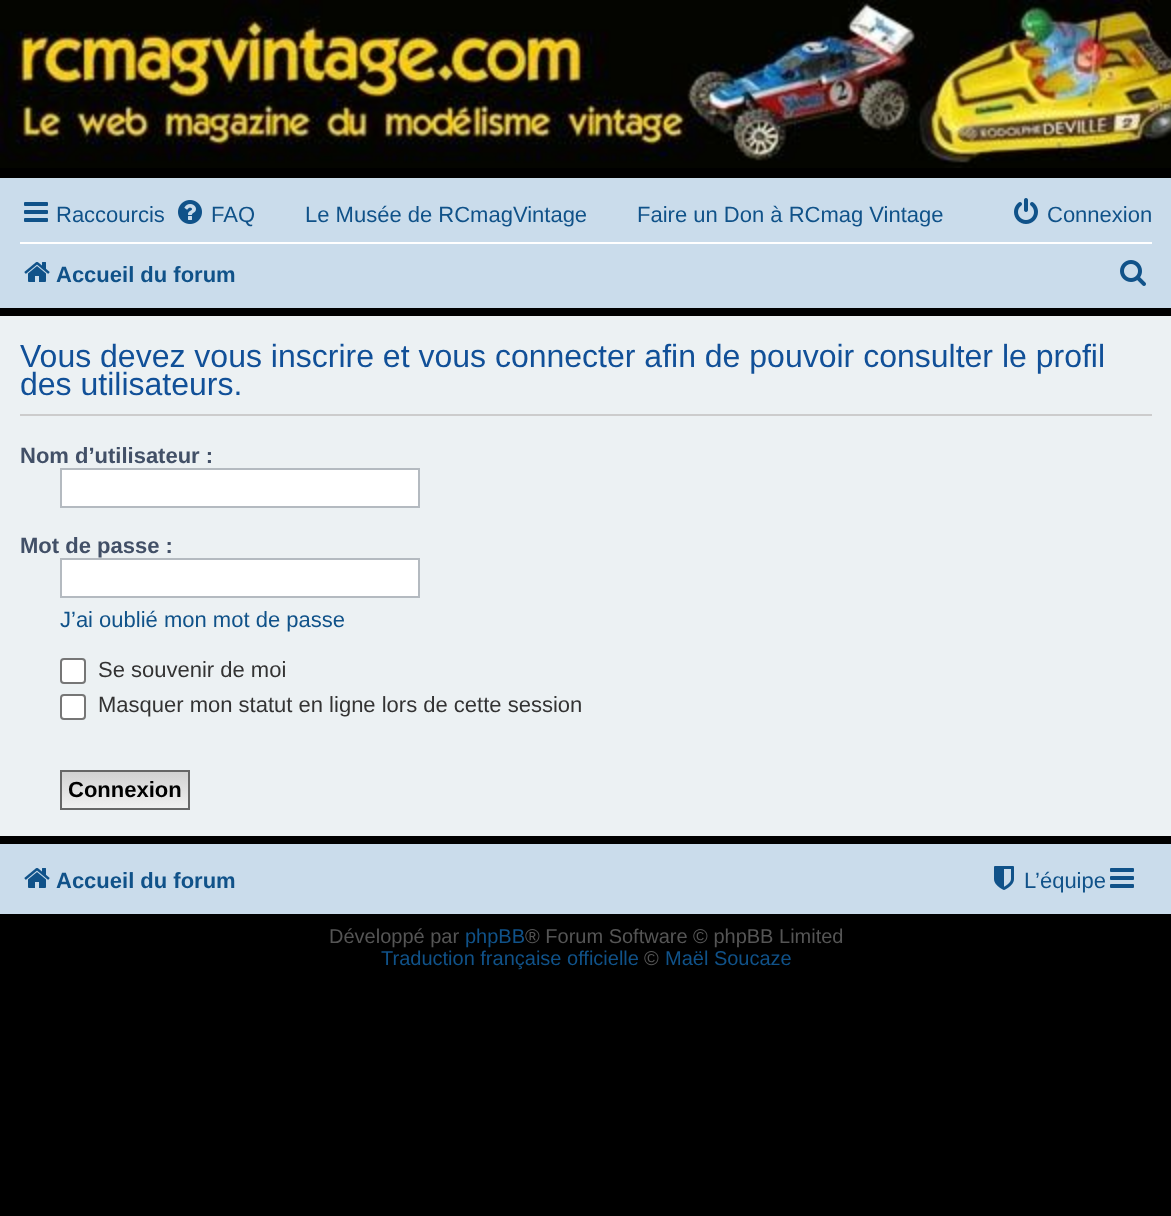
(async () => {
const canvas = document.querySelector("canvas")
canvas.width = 1171
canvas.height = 1216
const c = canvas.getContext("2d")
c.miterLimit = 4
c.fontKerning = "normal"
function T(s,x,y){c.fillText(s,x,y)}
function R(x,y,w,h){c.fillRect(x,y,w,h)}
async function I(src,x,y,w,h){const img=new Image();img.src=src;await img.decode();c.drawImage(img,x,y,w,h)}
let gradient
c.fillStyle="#000"
R(0,0,1171,1216)
await I("1.png",0,0,1171,168)
c.fillStyle="#cadceb"
R(0,178,1171,130)
await I("2.png",24,202,24,20)
c.font="22px Liberation Sans"
c.fillStyle="#105289"
T("Raccourcis",56,222)
await I("3.png",178,200,24,24)
T("FAQ",211,222)
T("Le Musée de RCmagVintage",305,222)
T("Faire un Don à RCmag Vintage",637,222)
await I("4.png",1014,198,24,26)
T("Connexion",1047,222)
c.fillStyle="#fff"
R(20,242,1132,2)
await I("5.png",24,262,26,20)
c.font="bold 22px Liberation Sans"
c.fillStyle="#105289"
T("Accueil du forum",56,282)
await I("6.png",1120,260,26,26)
c.fillStyle="#ecf1f3"
R(0,316,1171,520)
c.fillStyle="#ccc"
R(20,414,1132,2)
c.font="32px Liberation Sans"
c.fillStyle="#115098"
T("Vous devez vous inscrire et vous connecter afin de pouvoir consulter le profil",20,367)
T("des utilisateurs.",20,395)
c.font="bold 22px Liberation Sans"
c.fillStyle="#425067"
T("Nom d’utilisateur :",20,463)
c.fillStyle="#fff"
c.beginPath()
c.rect(61,469,358,38)
c.fill()
c.strokeStyle="#b4bac0"
c.lineWidth=2
c.stroke()
c.fillStyle="#425067"
T("Mot de passe :",20,553)
c.fillStyle="#fff"
c.beginPath()
c.rect(61,559,358,38)
c.fill()
c.stroke()
c.font="22px Liberation Sans"
c.fillStyle="#105289"
T("J’ai oublié mon mot de passe",60,627)
c.fillStyle="#fff"
c.beginPath()
c.roundRect(61,659,24,24,3)
c.fill()
c.strokeStyle="#767676"
c.stroke()
c.fillStyle="#333"
T("Se souvenir de moi",98,677)
c.fillStyle="#fff"
c.beginPath()
c.roundRect(61,695,24,24,3)
c.fill()
c.stroke()
c.fillStyle="#333"
T("Masquer mon statut en ligne lors de cette session",98,712)
gradient = c.createLinearGradient(125,772,125,808)
gradient.addColorStop(0,"#d2d2d2")
gradient.addColorStop(1,"#efefef")
c.fillStyle = gradient
R(62,772,126,36)
c.strokeStyle="#666"
c.strokeRect(61,771,128,38)
c.font="bold 22px Liberation Sans"
c.fillStyle="#000"
T("Connexion",68,797)
c.fillStyle="#cadceb"
R(0,844,1171,70)
await I("5.png",24,868,26,20)
c.fillStyle="#105289"
T("Accueil du forum",56,888)
await I("7.png",994,866,20,24)
c.font="22px Liberation Sans"
T("L’équipe",1024,888)
await I("2.png",1110,868,24,20)
c.font="20px Liberation Sans"
c.fillStyle="#555"
T("Développé par",329,943)
c.fillStyle="#105289"
T("phpBB",465,943)
c.fillStyle="#555"
T("® Forum Software © phpBB Limited",525,943)
c.fillStyle="#105289"
T("Traduction française officielle",381,965)
c.fillStyle="#555"
T("©",644,965)
c.fillStyle="#105289"
T("Maël Soucaze",665,965)
})()
